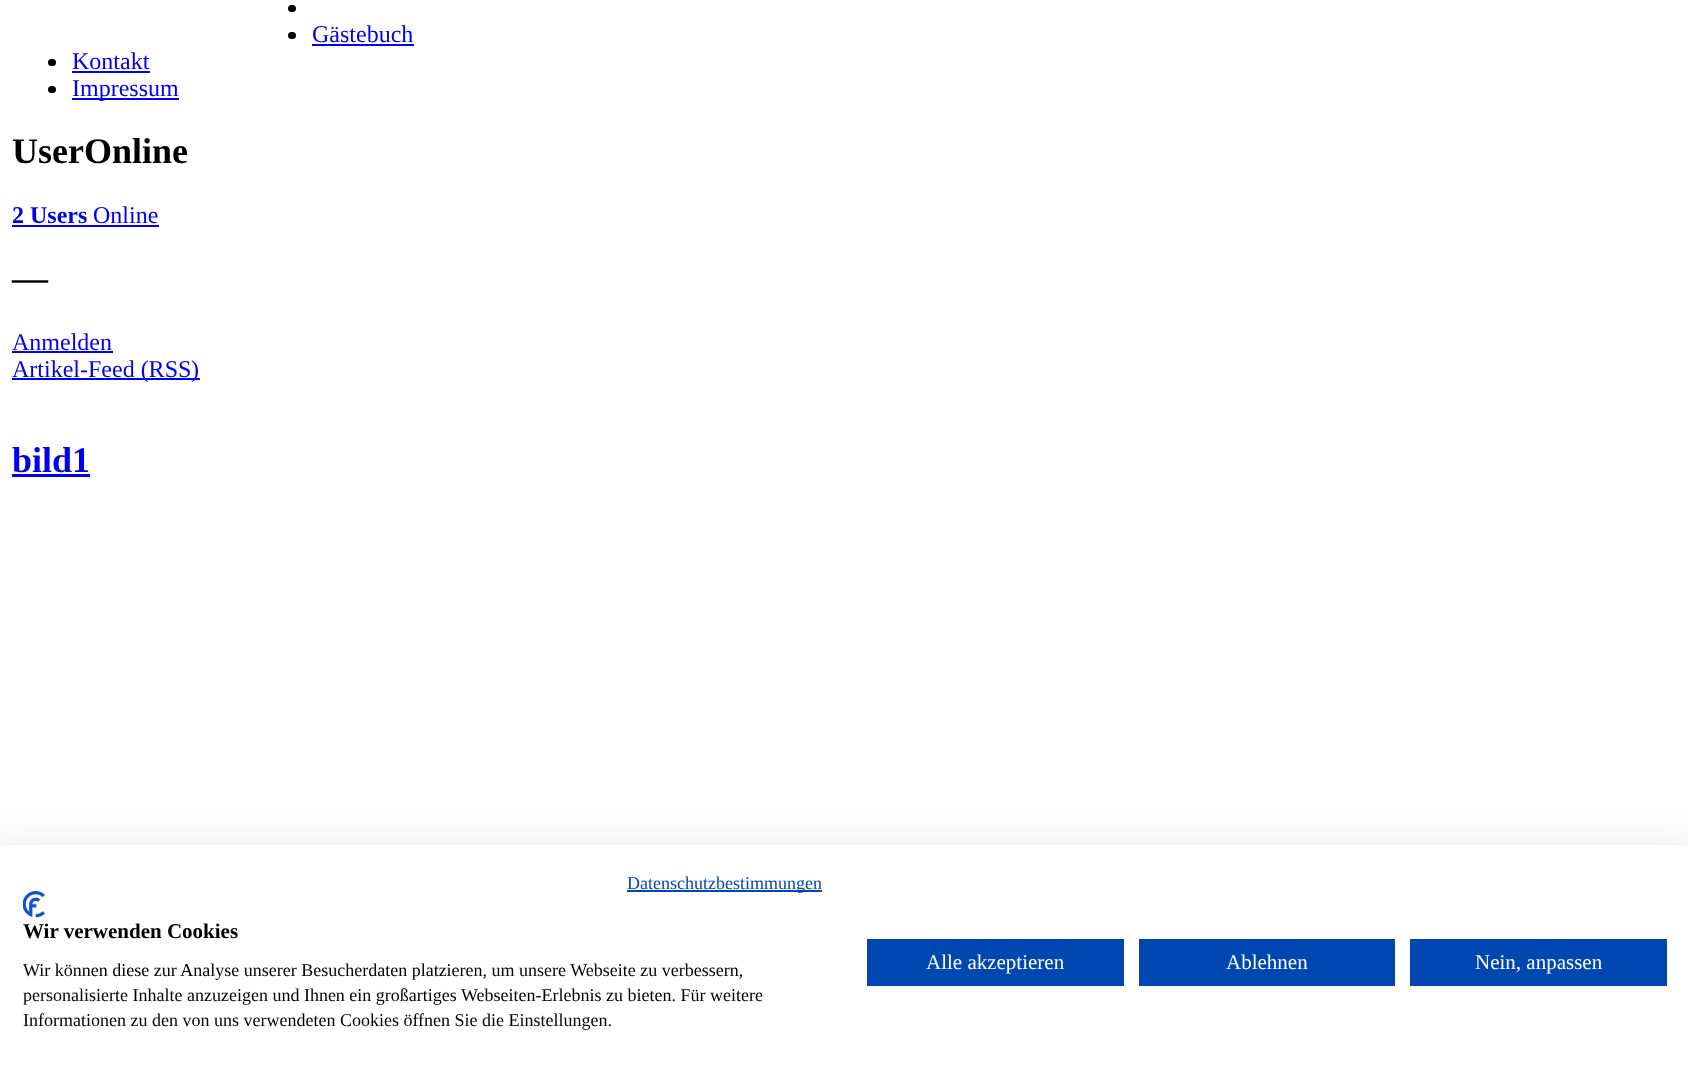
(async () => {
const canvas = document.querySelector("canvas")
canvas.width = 1688
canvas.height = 1073
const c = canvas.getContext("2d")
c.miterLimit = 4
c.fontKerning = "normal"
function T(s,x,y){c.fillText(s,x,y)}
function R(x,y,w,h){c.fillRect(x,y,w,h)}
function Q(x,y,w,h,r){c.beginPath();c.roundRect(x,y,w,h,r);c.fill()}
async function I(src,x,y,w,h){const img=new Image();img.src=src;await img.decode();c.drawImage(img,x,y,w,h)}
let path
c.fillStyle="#fff"
R(0,0,1688,1073)
c.fillStyle="#000"
Q(288,5,8,7,3.5)
Q(288,32,8,7,3.5)
c.font="24px Liberation Serif"
c.fillStyle="#00e"
T("Gästebuch",312,42)
R(312,44,102,2)
c.fillStyle="#000"
Q(48,59,8,7,3.5)
c.fillStyle="#00e"
T("Kontakt",72,69)
R(72,71,78,2)
c.fillStyle="#000"
Q(48,86,8,7,3.5)
c.fillStyle="#00e"
R(72,98,107,2)
T("Impressum",72,96)
c.font="bold 36px Liberation Serif"
c.fillStyle="#000"
T("UserOnline",12,163)
c.font="bold 24px Liberation Serif"
c.fillStyle="#00e"
T("2 Users",12,223)
R(12,225,147,2)
c.font="24px Liberation Serif"
T("Online",93,223)
c.font="bold 36px Liberation Serif"
c.fillStyle="#000"
T("—",12,290)
c.font="24px Liberation Serif"
c.fillStyle="#00e"
T("Anmelden",12,350)
R(12,351,101,2)
R(12,378,137,2)
T("Artikel-Feed (RSS",12,377)
path = new Path2D("M148.5 379h43")
c.strokeStyle="#00e"
c.lineWidth=1.5
c.setLineDash([1.5,1.5])
c.stroke(path)
R(149,378,51,2)
T(")",191,377)
c.font="bold 36px Liberation Serif"
T("bild1",12,472)
R(12,474,78,3)
c.fillStyle="#0000001a"
c.filter="blur(18px)"
c.beginPath()
c.rect(0,845,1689,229)
c.fill()
c.filter="none"
c.fillStyle="#fff"
R(0,845,1688,228)
c.fillStyle="#0047b2"
R(627,890,195,2)
c.font="18px Liberation Serif"
T("Datenschutzbestimmungen",627,889)
await I("1.png",23,891,22,27)
c.font="bold 21px Liberation Serif"
c.fillStyle="#000"
T("Wir verwenden Cookies",23,938)
c.font="18px Liberation Serif"
T("Wir können diese zur Analyse unserer Besucherdaten platzieren, um unsere Webseite zu verbessern,",23,976)
T("personalisierte Inhalte anzuzeigen und Ihnen ein großartiges Webseiten-Erlebnis zu bieten. Für weitere",23,1001)
T("Informationen zu den von uns verwendeten Cookies öffnen Sie die Einstellungen.",23,1026)
c.fillStyle="#0047b2"
R(867,939,257,47)
c.font="21px Liberation Serif"
c.fillStyle="#fff"
T("Alle akzeptieren",926,969)
c.fillStyle="#0047b2"
R(1139,939,256,47)
c.fillStyle="#fff"
T("Ablehnen",1226,969)
c.fillStyle="#0047b2"
R(1410,939,257,47)
c.fillStyle="#fff"
T("Nein, anpassen",1475,969)
})()
